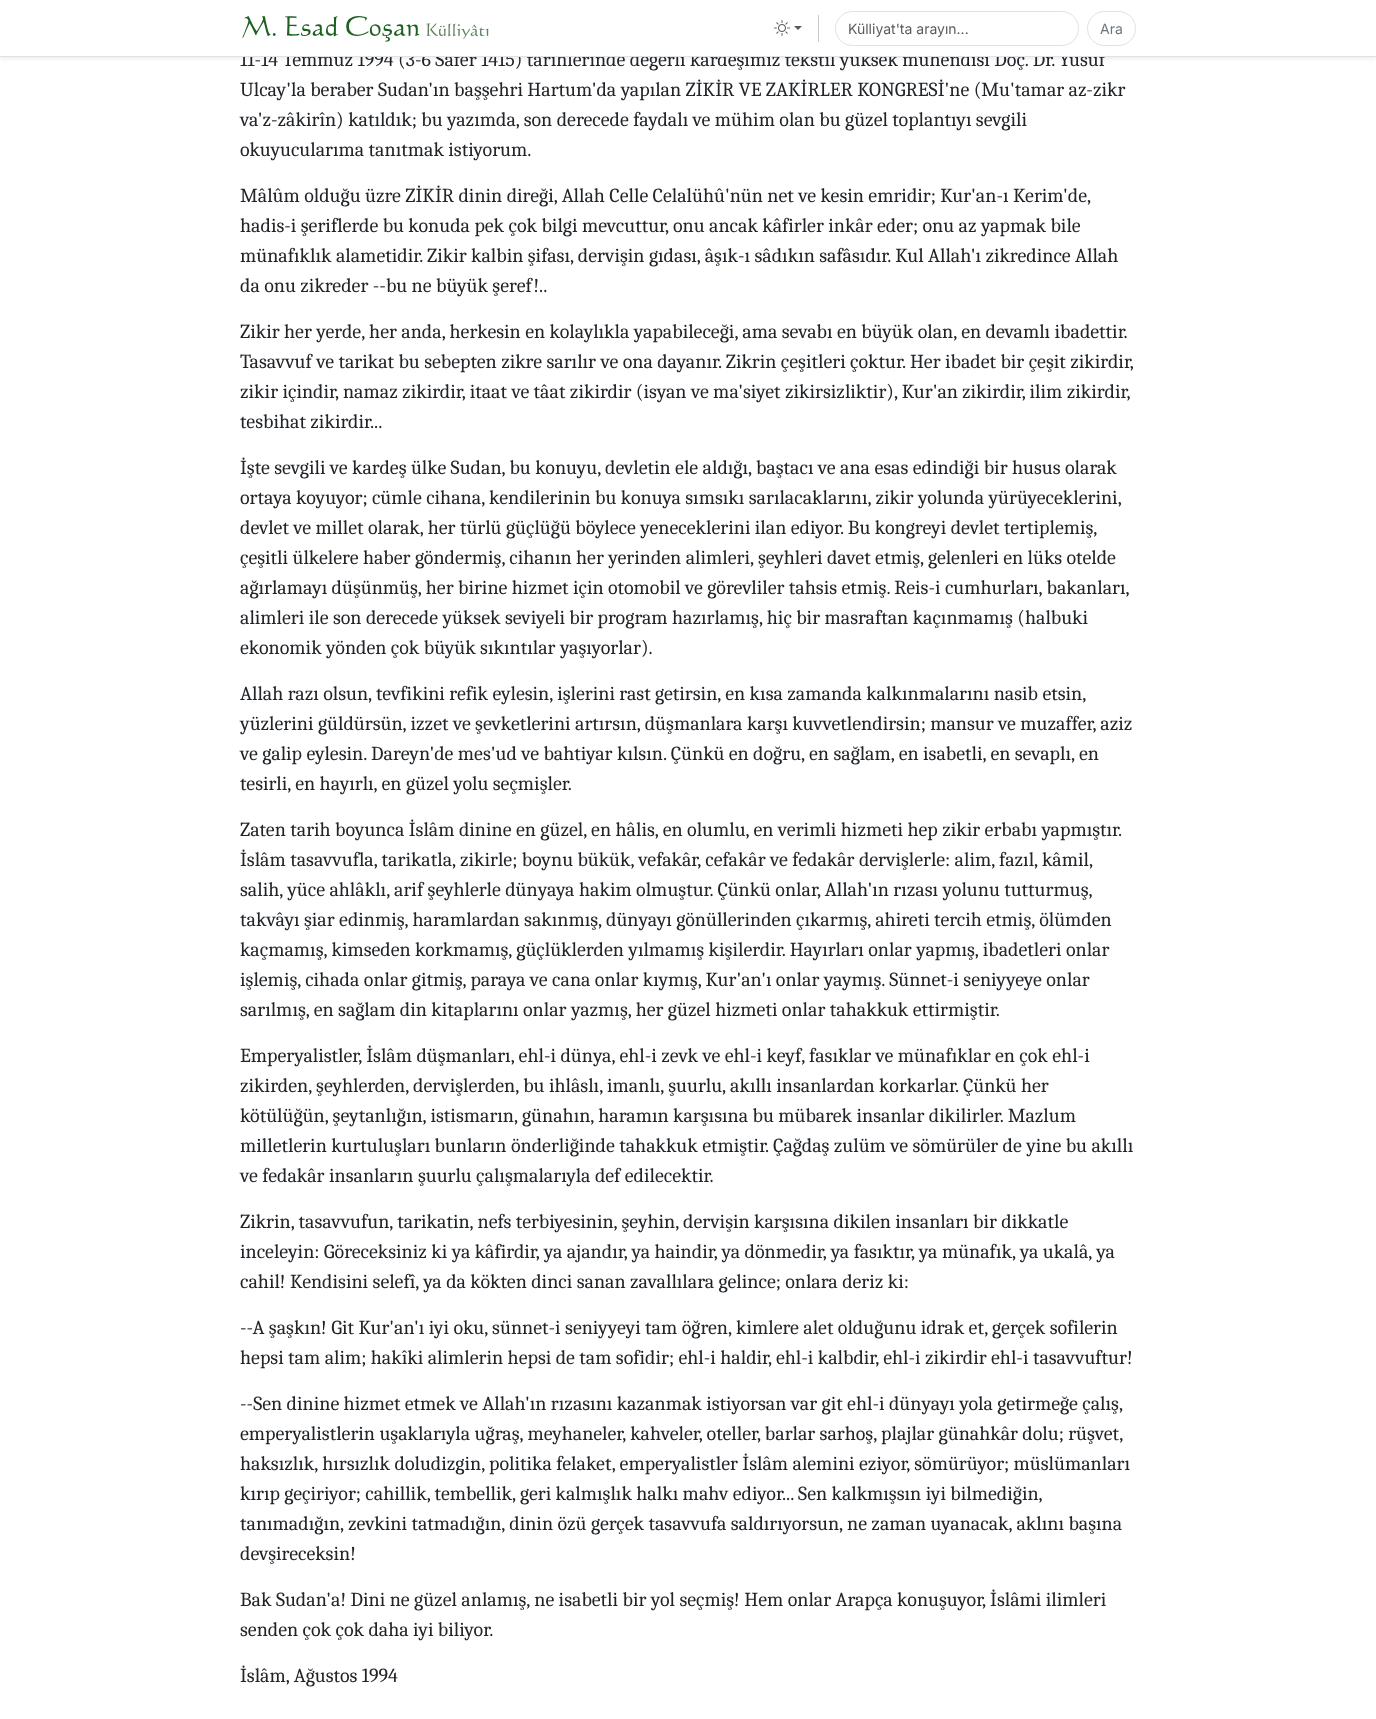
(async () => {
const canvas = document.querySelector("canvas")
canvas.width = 1376
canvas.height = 1719
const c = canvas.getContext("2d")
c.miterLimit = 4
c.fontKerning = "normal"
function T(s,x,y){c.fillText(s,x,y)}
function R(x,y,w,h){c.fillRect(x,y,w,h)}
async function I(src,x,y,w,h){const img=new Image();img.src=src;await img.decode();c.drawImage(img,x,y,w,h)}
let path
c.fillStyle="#fff"
R(0,0,1376,1719)
c.fillStyle="#00000012"
c.filter="blur(2px)"
c.beginPath()
c.rect(0,2,1376,57)
c.fill()
c.filter="none"
c.font="20px Caladea"
c.fillStyle="#212529"
T("11-14 Temmuz 1994 (3-6 Safer 1415) tarihlerinde değerli kardeşimiz tekstil yüksek mühendisi Doç. Dr. Yusuf",240,66)
c.fillStyle="#fff"
R(0,0,1376,56)
c.fillStyle="#dee2e6"
R(0,56,1376,1)
await I("1.png",242,16,247,26)
await I("2.png",774,20,16,16)
c.fillStyle="#595959"
path = new Path2D("M794 26h8l-4 4z")
c.fill(path)
c.fillStyle="#c8c9ca"
R(818,15,1,27)
c.beginPath()
c.roundRect(835.5,11.5,243,34,17)
c.strokeStyle="#dee2e6"
c.stroke()
c.font="14px Inter"
c.fillStyle="#595c5f"
T("Külliyat'ta arayın...",848,34)
c.beginPath()
c.roundRect(1087.5,11.5,48,34,17)
c.stroke()
c.fillStyle="#6c757d"
T("Ara",1100,34)
c.font="20px Caladea"
c.fillStyle="#212529"
T("Ulcay'la beraber Sudan'ın başşehri Hartum'da yapılan ZİKİR VE ZAKİRLER KONGRESİ'ne (Mu'tamar az-zikr",240,96)
T("va'z-zâkirîn) katıldık; bu yazımda, son derecede faydalı ve mühim olan bu güzel toplantıyı sevgili",240,126)
T("okuyucularıma tanıtmak istiyorum.",240,156)
T("Mâlûm olduğu üzre ZİKİR dinin direği, Allah Celle Celalühû'nün net ve kesin emridir; Kur'an-ı Kerim'de,",240,202)
T("hadis-i şeriflerde bu konuda pek çok bilgi mevcuttur, onu ancak kâfirler inkâr eder; onu az yapmak bile",240,232)
T("münafıklık alametidir. Zikir kalbin şifası, dervişin gıdası, âşık-ı sâdıkın safâsıdır. Kul Allah'ı zikredince Allah",240,262)
T("da onu zikreder --bu ne büyük şeref!..",240,292)
T("Zikir her yerde, her anda, herkesin en kolaylıkla yapabileceği, ama sevabı en büyük olan, en devamlı ibadettir.",240,338)
T("Tasavvuf ve tarikat bu sebepten zikre sarılır ve ona dayanır. Zikrin çeşitleri çoktur. Her ibadet bir çeşit zikirdir,",240,368)
T("zikir içindir, namaz zikirdir, itaat ve tâat zikirdir (isyan ve ma'siyet zikirsizliktir), Kur'an",240,398)
T("zikirdir, ilim zikirdir,",962,398)
T("tesbihat zikirdir...",240,428)
T("İşte sevgili ve kardeş ülke Sudan, bu konuyu, devletin ele aldığı, baştacı ve ana esas edindiği bir husus olarak",240,474)
T("ortaya koyuyor; cümle cihana, kendilerinin bu konuya sımsıkı sarılacaklarını, zikir yolunda yürüyeceklerini,",240,504)
T("devlet ve millet olarak, her türlü güçlüğü böylece yeneceklerini ilan ediyor. Bu kongreyi devlet tertiplemiş,",240,534)
T("çeşitli ülkelere haber göndermiş, cihanın her yerinden alimleri, şeyhleri davet etmiş, gelenleri en lüks otelde",240,564)
T("ağırlamayı düşünmüş, her birine hizmet için otomobil ve görevliler tahsis etmiş. Reis-i cumhurları, bakanları,",240,594)
T("alimleri ile son derecede yüksek seviyeli bir program hazırlamış, hiç bir masraftan kaçınmamış (halbuki",240,624)
T("ekonomik yönden çok büyük sıkıntılar yaşıyorlar).",240,654)
T("Allah razı olsun, tevfikini refik eylesin, işlerini rast getirsin, en kısa zamanda kalkınmalarını nasib etsin,",240,700)
T("yüzlerini güldürsün, izzet ve şevketlerini artırsın, düşmanlara karşı kuvvetlendirsin; mansur ve muzaffer, aziz",240,730)
T("ve galip eylesin. Dareyn'de mes'ud ve bahtiyar kılsın. Çünkü en doğru, en sağlam, en isabetli, en sevaplı, en",240,760)
T("tesirli, en hayırlı, en güzel yolu seçmişler.",240,790)
T("Zaten tarih boyunca İslâm dinine en güzel, en hâlis, en olumlu, en verimli hizmeti hep zikir erbabı yapmıştır.",240,836)
T("İslâm tasavvufla, tarikatla, zikirle; boynu bükük, vefakâr, cefakâr ve fedakâr dervişlerle: alim, fazıl, kâmil,",240,866)
T("salih, yüce ahlâklı, arif şeyhlerle dünyaya hakim olmuştur. Çünkü onlar, Allah'ın rızası yolunu tutturmuş,",240,896)
T("takvâyı şiar edinmiş, haramlardan sakınmış, dünyayı gönüllerinden çıkarmış, ahireti tercih etmiş, ölümden",240,926)
T("kaçmamış, kimseden korkmamış, güçlüklerden yılmamış kişilerdir. Hayırları onlar yapmış, ibadetleri onlar",240,956)
T("işlemiş, cihada onlar gitmiş, paraya ve cana onlar kıymış, Kur'an'ı onlar yaymış. Sünnet-i seniyyeye onlar",240,986)
T("sarılmış, en sağlam din kitaplarını onlar yazmış, her güzel hizmeti onlar tahakkuk ettirmiştir.",240,1016)
T("Emperyalistler, İslâm düşmanları, ehl-i dünya, ehl-i zevk ve ehl-i keyf, fasıklar ve münafıklar en çok ehl-i",240,1062)
T("zikirden, şeyhlerden, dervişlerden, bu ihlâslı, imanlı, şuurlu, akıllı insanlardan korkarlar. Çünkü her",240,1092)
T("kötülüğün, şeytanlığın, istismarın, günahın, haramın karşısına bu mübarek insanlar dikilirler. Mazlum",240,1122)
T("milletlerin kurtuluşları bunların önderliğinde tahakkuk etmiştir. Çağdaş zulüm ve sömürüler de yine bu akıllı",240,1152)
T("ve fedakâr insanların şuurlu çalışmalarıyla def edilecektir.",240,1182)
T("Zikrin, tasavvufun, tarikatin, nefs terbiyesinin, şeyhin, dervişin karşısına dikilen insanları bir dikkatle",240,1228)
T("inceleyin: Göreceksiniz ki ya kâfirdir, ya ajandır, ya haindir, ya dönmedir, ya fasıktır, ya münafık, ya ukalâ, ya",240,1258)
T("cahil! Kendisini selefî, ya da kökten dinci sanan zavallılara gelince; onlara deriz ki:",240,1288)
T("--A şaşkın! Git Kur'an'ı iyi oku, sünnet-i seniyyeyi tam öğren, kimlere alet olduğunu idrak et, gerçek sofilerin",240,1334)
T("hepsi tam alim; hakîki alimlerin hepsi de tam sofidir; ehl-i haldir, ehl-i kalbdir, ehl-i zikirdir ehl-i tasavvuftur!",240,1364)
T("--Sen dinine hizmet etmek ve Allah'ın rızasını kazanmak istiyorsan var git ehl-i dünyayı yola getirmeğe çalış,",240,1410)
T("emperyalistlerin uşaklarıyla uğraş, meyhaneler, kahveler, oteller, barlar sarhoş, plajlar günahkâr dolu; rüşvet,",240,1440)
T("haksızlık, hırsızlık doludizgin, politika felaket, emperyalistler İslâm alemini eziyor, sömürüyor; müslümanları",240,1470)
T("kırıp geçiriyor; cahillik, tembellik, geri kalmışlık halkı mahv ediyor... Sen kalkmışsın iyi bilmediğin,",240,1500)
T("tanımadığın, zevkini tatmadığın, dinin özü gerçek tasavvufa saldırıyorsun, ne zaman uyanacak, aklını başına",240,1530)
T("devşireceksin!",240,1560)
T("Bak Sudan'a! Dini ne güzel anlamış, ne isabetli bir yol seçmiş! Hem onlar Arapça konuşuyor, İslâmi ilimleri",240,1606)
T("senden çok çok daha iyi biliyor.",240,1636)
T("İslâm, Ağustos 1994",240,1682)
})()
